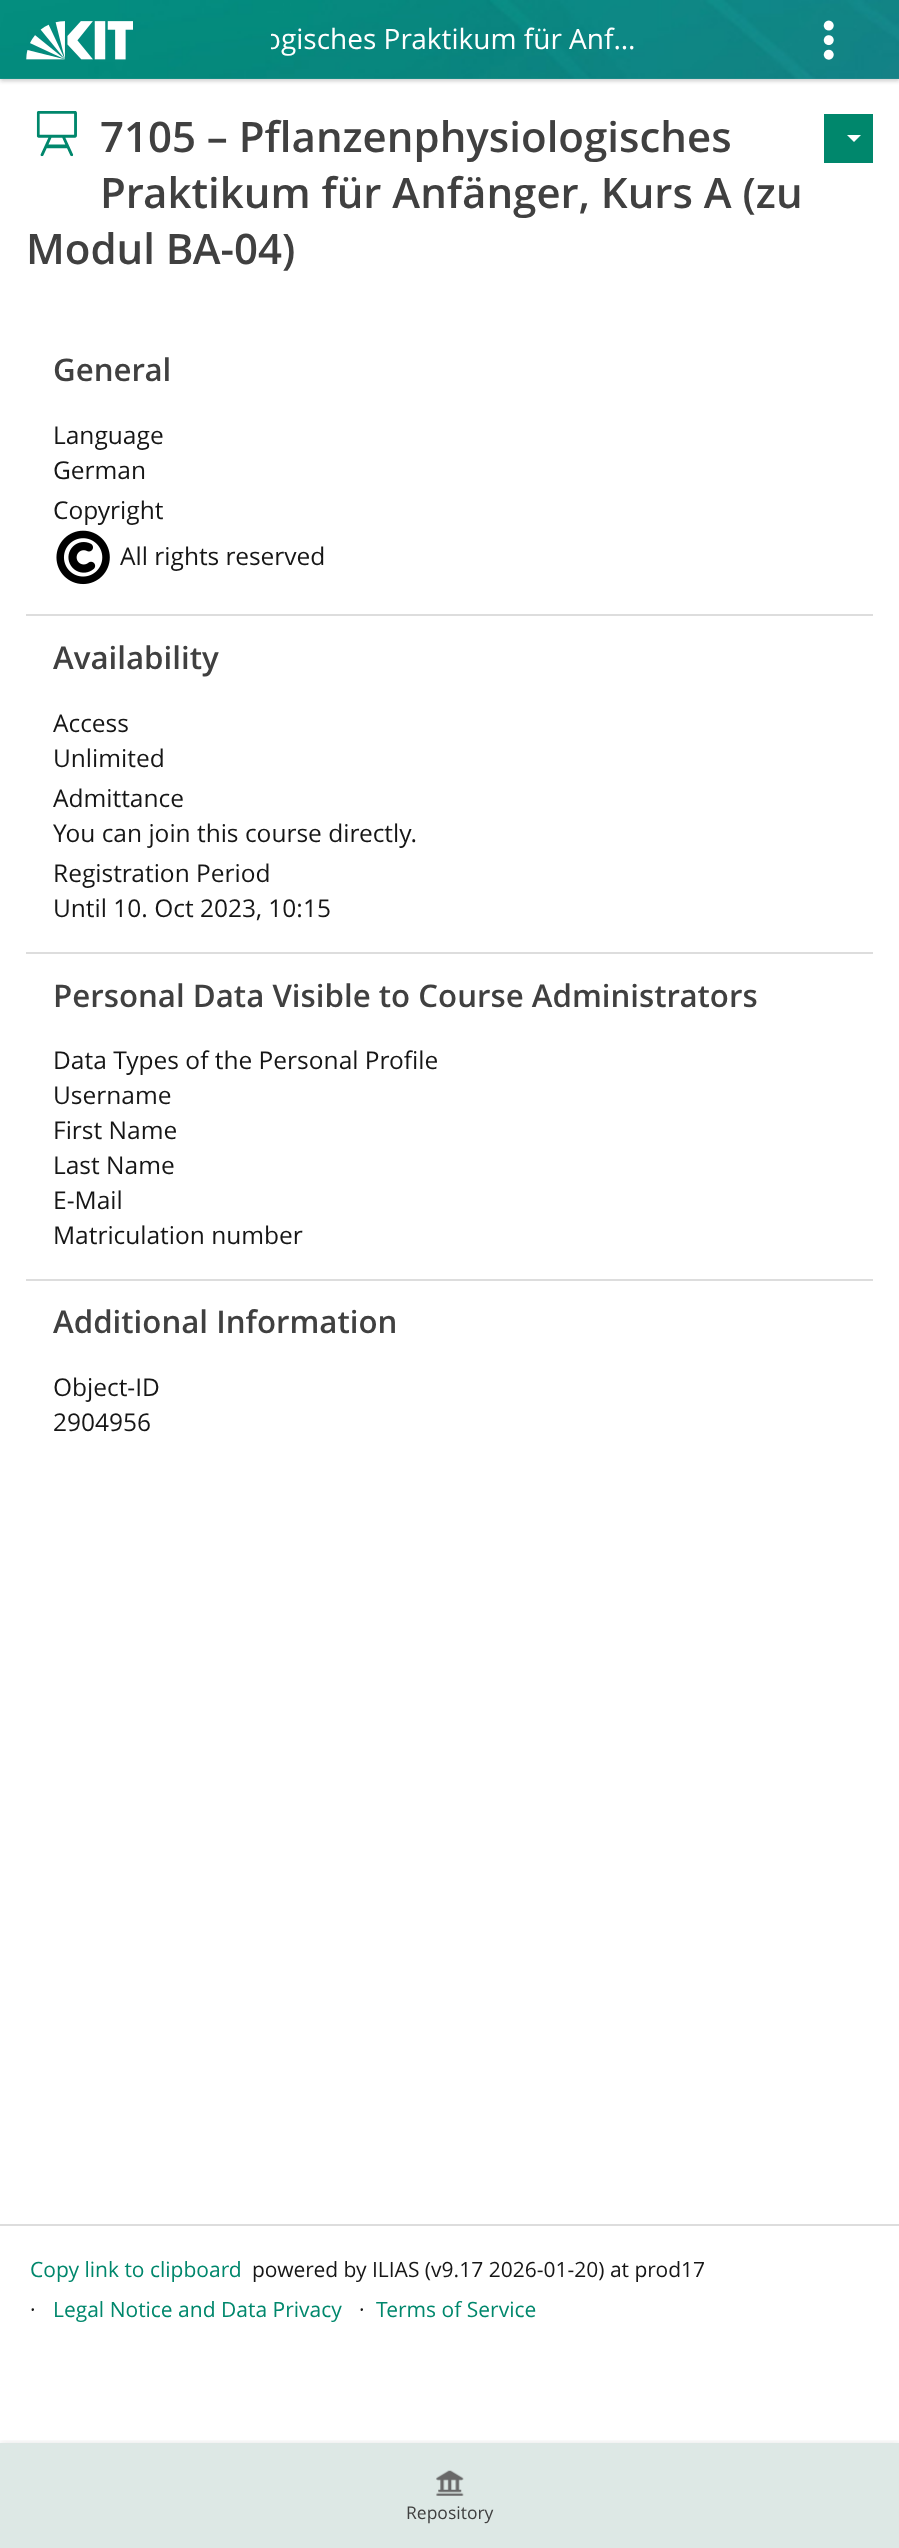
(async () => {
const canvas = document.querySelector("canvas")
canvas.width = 899
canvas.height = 2548
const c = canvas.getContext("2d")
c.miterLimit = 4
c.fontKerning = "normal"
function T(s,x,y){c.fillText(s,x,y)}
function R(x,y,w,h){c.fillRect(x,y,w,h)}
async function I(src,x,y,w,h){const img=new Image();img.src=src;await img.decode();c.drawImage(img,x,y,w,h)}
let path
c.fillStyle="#fff"
R(0,0,899,2548)
c.fillStyle="#0000001a"
c.filter="blur(2px)"
c.beginPath()
c.rect(0,2,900,79)
c.fill()
c.filter="none"
c.filter="blur(2px)"
c.beginPath()
c.rect(0,2,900,79)
c.fill()
c.filter="none"
await I("1.png",0,0,899,79)
await I("2.png",26,21,107,39)
c.save()
c.beginPath()
c.rect(271,14,385,51)
c.clip()
c.font="28px Open Sans"
c.fillStyle="#fff"
T("ogisches Praktikum für Anf…",264,49)
c.restore()
await I("3.png",823,20,11,40)
await I("4.png",36,111,41,46)
c.fillStyle="#00876c"
R(824,114,49,49)
c.fillStyle="#fff"
path = new Path2D("M847 135h14l-7 7z")
c.fill(path)
c.font="600 42px Open Sans"
c.fillStyle="#404040"
T("7105 – Pflanzenphysiologisches",100,152)
T("Praktikum für Anfänger, Kurs A (zu",100,208)
T("Modul BA-04)",26,264)
c.font="600 31.25px Open Sans"
T("General",53,381)
c.font="24.5px Open Sans"
c.fillStyle="#161616"
T("Language",53,444)
T("German",53,479)
T("Copyright",53,519)
await I("5.png",56,530,54,55)
T("All rights reserved",120,565)
c.fillStyle="#ddd"
R(26,614,847,2)
c.font="600 31.25px Open Sans"
c.fillStyle="#404040"
T("Availability",53,669)
c.font="24.5px Open Sans"
c.fillStyle="#161616"
T("Access",53,732)
T("Unlimited",53,767)
T("Admittance",53,807)
T("You can join this course directly.",53,842)
T("Registration Period",53,882)
T("Until 10. Oct 2023, 10:15",53,917)
c.fillStyle="#ddd"
R(26,952,847,2)
c.font="600 31.25px Open Sans"
c.fillStyle="#404040"
T("Personal Data Visible to Course Administrators",53,1007)
c.font="24.5px Open Sans"
c.fillStyle="#161616"
T("Data Types of the Personal Profile",53,1069)
T("Username",53,1104)
T("First Name",53,1139)
T("Last Name",53,1174)
T("E-Mail",53,1209)
T("Matriculation number",53,1244)
c.fillStyle="#ddd"
R(26,1279,847,2)
c.font="600 31.25px Open Sans"
c.fillStyle="#404040"
T("Additional Information",53,1333)
c.font="24.5px Open Sans"
c.fillStyle="#161616"
T("Object-ID",53,1396)
T("2904956",53,1431)
c.fillStyle="#ddd"
R(0,2224,899,2)
c.font="21px Open Sans"
c.fillStyle="#00876c"
T("Copy link to clipboard",30,2277)
c.fillStyle="#161616"
T("powered by ILIAS (v9.17 2026-01-20) at prod17",252,2277)
T("·",30,2317)
c.fillStyle="#00876c"
T("Legal Notice and Data Privacy",53,2317)
c.fillStyle="#161616"
T("·",359,2317)
c.fillStyle="#00876c"
T("Terms of Service",376,2317)
c.fillStyle="#dde8e5"
R(0,2443,899,105)
c.save()
c.beginPath()
c.rect(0,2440,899,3)
c.clip()
c.fillStyle="#0000001a"
c.filter="blur(3.5px)"
c.beginPath()
c.rect(0,2443,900,105)
c.fill()
c.filter="none"
c.restore()
await I("6.png",436,2470,28,26)
c.font="17.5px Open Sans"
c.fillStyle="#404040"
T("Repository",406,2519)
})()
